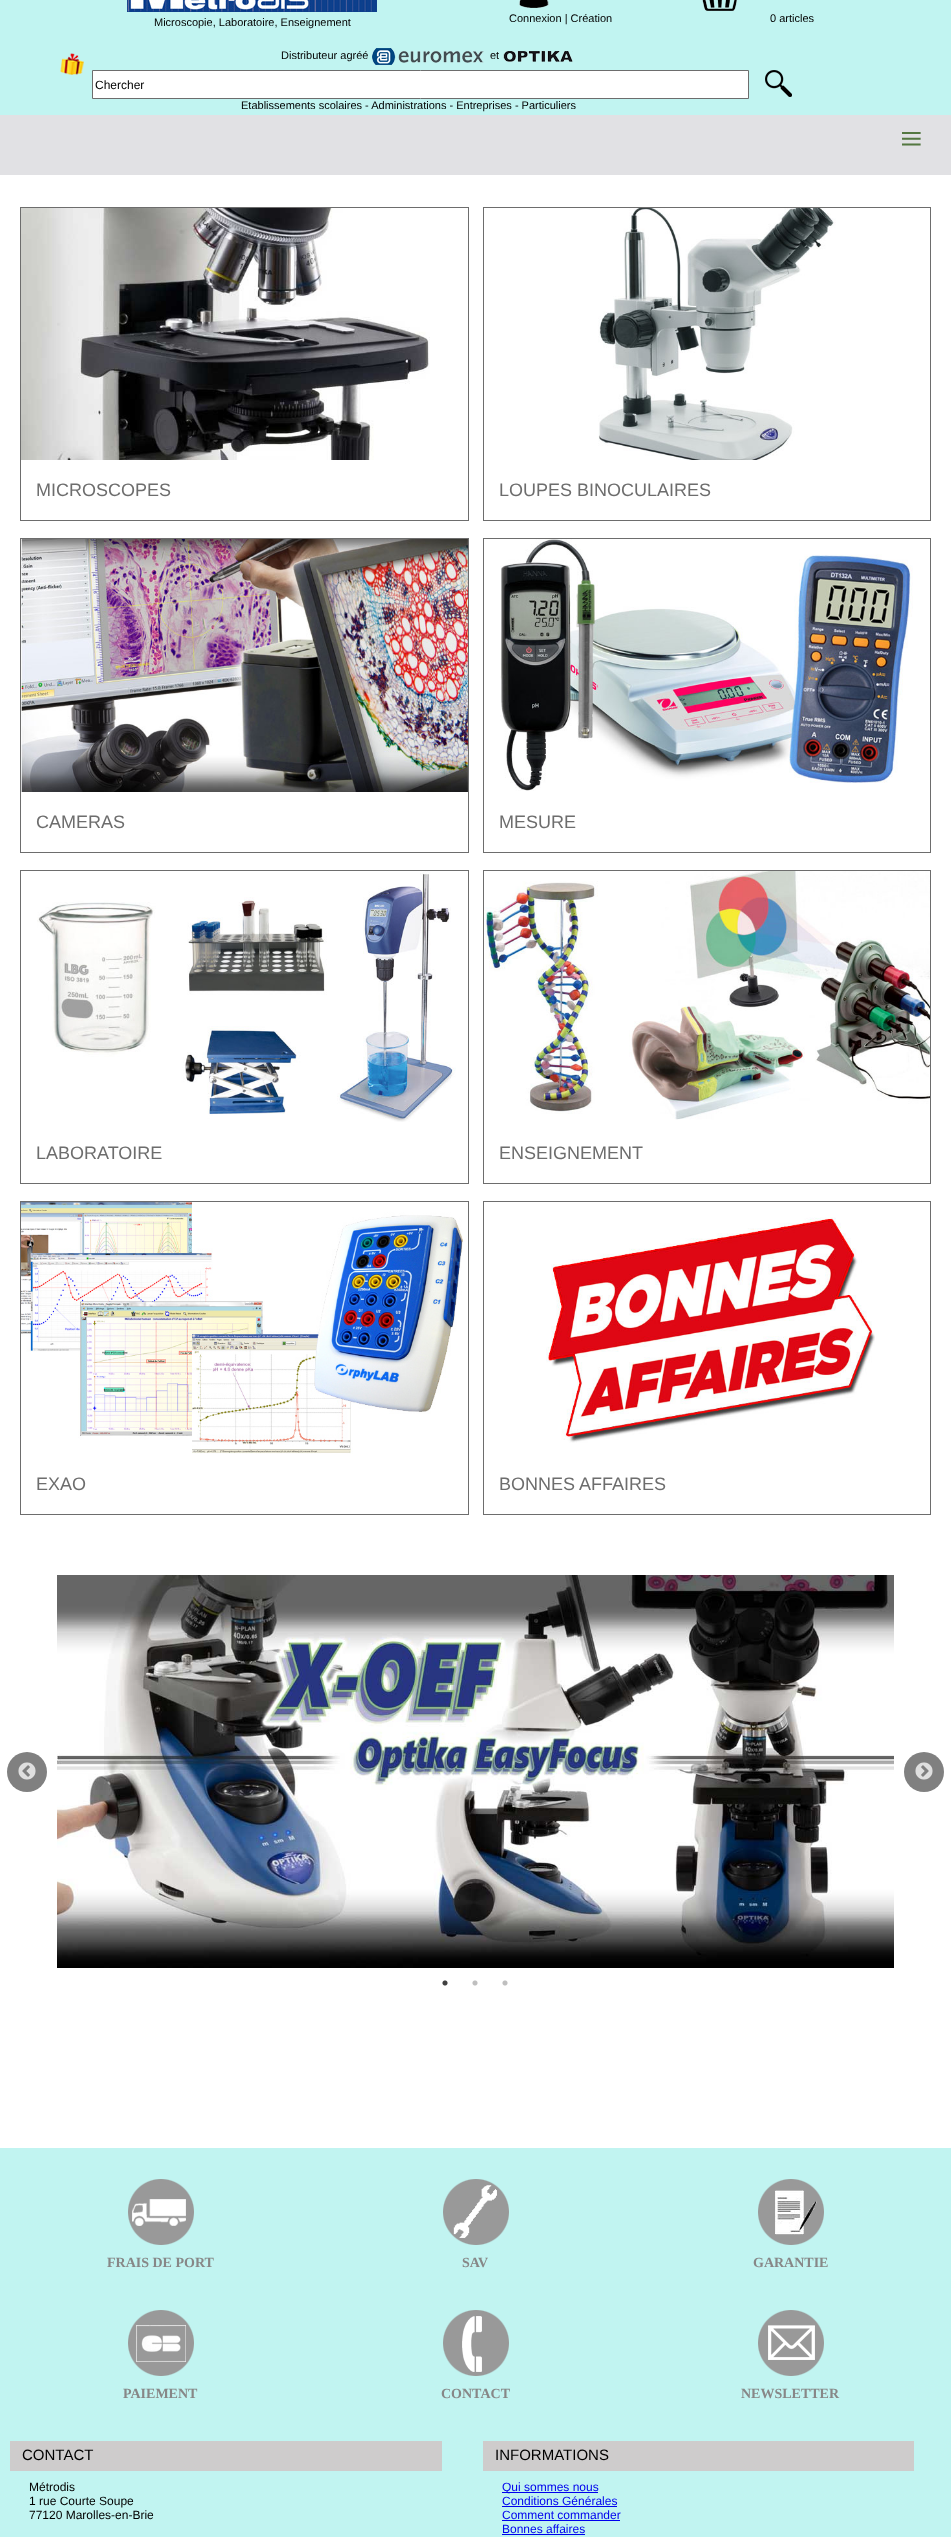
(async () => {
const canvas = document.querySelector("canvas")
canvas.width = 951
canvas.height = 2537
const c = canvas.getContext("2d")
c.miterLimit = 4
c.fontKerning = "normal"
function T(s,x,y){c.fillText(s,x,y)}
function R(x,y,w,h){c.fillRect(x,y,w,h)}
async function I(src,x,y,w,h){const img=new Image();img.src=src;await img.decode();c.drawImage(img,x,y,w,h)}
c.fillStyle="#fff"
R(0,0,951,2537)
c.fillStyle="#c1f4f1"
R(0,0,951,115)
await I("1.png",127,0,250,12)
c.font="11px Liberation Sans"
c.fillStyle="#000"
T("Microscopie, Laboratoire, Enseignement",154,26)
await I("2.png",519,0,30,8)
T("Connexion | Création",509,22)
await I("3.png",702,0,35,11)
T("0 articles",770,22)
await I("4.png",60,53,24,22)
T("Distributeur agréé",281,59)
await I("5.png",372,48,112,17)
T("et",490,59)
await I("6.png",503,51,70,11)
c.fillStyle="#fff"
c.beginPath()
c.rect(92.5,70.5,656,28)
c.fill()
c.strokeStyle="#6d6d6d"
c.stroke()
c.font="12px Liberation Sans"
c.fillStyle="#000"
T("Chercher",95,89)
await I("7.png",765,70,27,27)
c.font="11px Liberation Sans"
T("Etablissements scolaires - Administrations - Entreprises - Particuliers",241,109)
c.fillStyle="#e1e1e4"
R(0,115,951,60)
c.font="40px Liberation Serif"
c.fillStyle="#547841"
T("≡",900,152)
c.strokeRect(20.5,207.5,448,313)
await I("8.png",21,208,409,252)
c.font="18px Liberation Sans"
c.fillStyle="#6d6d6d"
T("MICROSCOPES",36,496)
c.strokeRect(483.5,207.5,447,313)
await I("9.png",598,208,238,252)
T("LOUPES BINOCULAIRES",499,496)
c.strokeRect(20.5,538.5,448,314)
await I("10.png",21,539,447,253)
T("CAMERAS",36,828)
c.strokeRect(483.5,538.5,447,314)
await I("11.png",500,539,413,252)
T("MESURE",499,828)
c.strokeRect(20.5,870.5,448,313)
await I("12.png",37,871,419,251)
T("LABORATOIRE",36,1159)
c.strokeRect(483.5,870.5,447,313)
await I("13.png",484,871,446,249)
T("ENSEIGNEMENT",499,1159)
c.strokeRect(20.5,1201.5,448,313)
await I("14.png",21,1202,442,252)
T("EXAO",36,1490)
c.strokeRect(483.5,1201.5,447,313)
await I("15.png",546,1217,329,226)
T("BONNES AFFAIRES",499,1490)
c.fillStyle="#808080"
c.beginPath()
c.arc(27,1772,20,0,7)
c.fill()
await I("16.png",18,1762,18,18)
await I("17.png",57,1575,837,393)
c.beginPath()
c.arc(924,1772,20,0,7)
c.fill()
await I("18.png",915,1762,18,18)
await I("19.png",442,1980,6,6)
await I("20.png",472,1980,6,6)
await I("20.png",502,1980,6,6)
c.fillStyle="#c1f4f1"
R(0,2148,951,389)
await I("21.png",128,2179,66,66)
c.font="bold 14px Liberation Serif"
c.fillStyle="#878787"
T("FRAIS DE PORT",107,2267)
await I("22.png",443,2179,66,66)
T("SAV",462,2267)
await I("23.png",758,2179,66,66)
T("GARANTIE",753,2267)
await I("24.png",128,2310,66,66)
T("PAIEMENT",123,2398)
await I("25.png",443,2310,66,66)
T("CONTACT",441,2398)
await I("26.png",758,2310,66,66)
T("NEWSLETTER",741,2398)
c.fillStyle="#cecccc"
R(10,2441,432,30)
c.font="15px Liberation Sans"
c.fillStyle="#000"
T("CONTACT",22,2460)
c.font="12px Liberation Sans"
T("Métrodis",29,2491)
T("1 rue Courte Soupe",29,2505)
T("77120 Marolles-en-Brie",29,2519)
c.fillStyle="#cecccc"
R(483,2441,431,30)
c.font="15px Liberation Sans"
c.fillStyle="#000"
T("INFORMATIONS",495,2460)
c.fillStyle="#00e"
R(502,2492,96,1)
c.font="12px Liberation Sans"
T("Qui sommes nous",502,2491)
T("Conditions Générales",502,2505)
R(502,2506,115,1)
T("Comment commander",502,2519)
R(502,2520,118,1)
T("Bonnes affaires",502,2533)
R(502,2534,83,1)
})()
